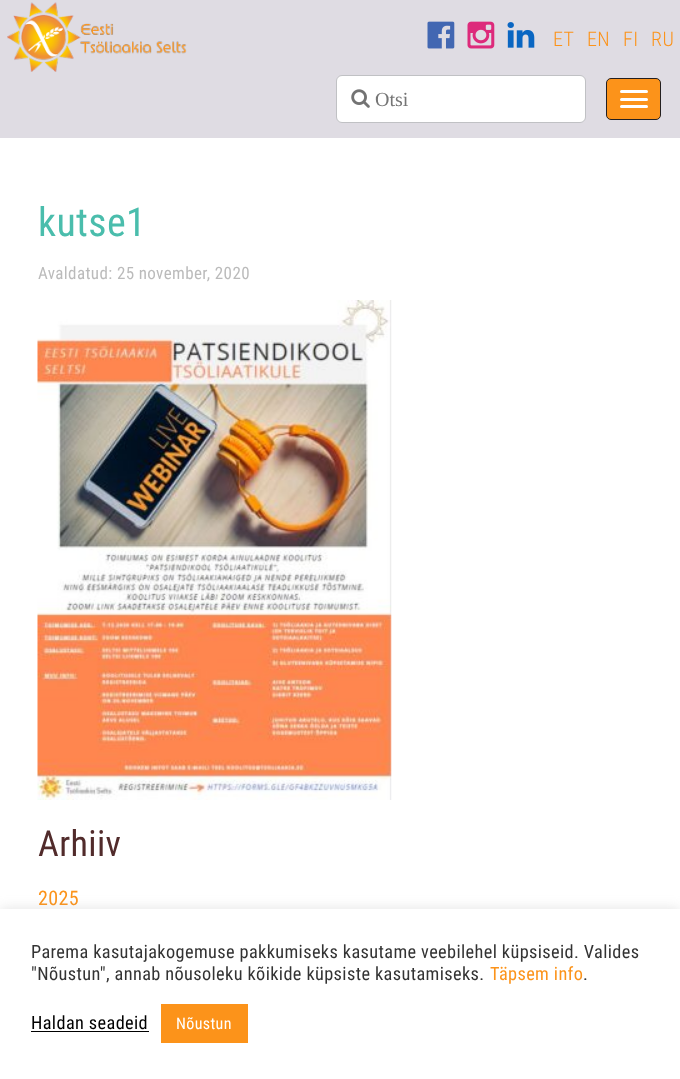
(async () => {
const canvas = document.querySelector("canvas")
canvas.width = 680
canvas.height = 1079
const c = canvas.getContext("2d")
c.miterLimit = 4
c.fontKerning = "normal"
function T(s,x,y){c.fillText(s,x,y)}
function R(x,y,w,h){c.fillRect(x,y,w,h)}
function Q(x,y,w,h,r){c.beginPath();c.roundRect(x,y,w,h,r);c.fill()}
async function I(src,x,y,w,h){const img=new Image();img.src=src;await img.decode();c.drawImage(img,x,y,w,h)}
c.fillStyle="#dfdce3"
R(0,0,680,1079)
await I("1.png",7,2,180,70)
await I("2.png",427,21,28,28)
await I("3.png",467,21,28,28)
await I("4.png",507,22,28,26)
c.letterSpacing="0.38px"
c.font="300 20px Roboto Condensed"
c.fillStyle="#fc931a"
T("ET",553,46)
T("EN",587,46)
T("FI",623,46)
T("RU",651,46)
c.fillStyle="#fff"
c.beginPath()
c.roundRect(336.5,75.5,249,47,5.5)
c.fill()
c.strokeStyle="#c0c1c4"
c.stroke()
await I("5.png",351,89,19,19)
c.letterSpacing="0px"
c.font="20px Liberation Serif"
c.fillStyle="#757575"
T("Otsi",375,106)
c.fillStyle="#fc931a"
c.beginPath()
c.roundRect(606.5,78.5,54,41,4.5)
c.fill()
c.strokeStyle="#231f20"
c.stroke()
c.fillStyle="#fff"
Q(620,90,28,3,1.5)
Q(620,98,28,3,1.5)
Q(620,105,28,3,1.5)
R(0,138,680,771)
c.letterSpacing="0.38px"
c.font="40px Roboto Condensed"
c.fillStyle="#4abdac"
T("kutse1",38,236)
c.font="17px Roboto Condensed"
c.fillStyle="#bbb"
T("Avaldatud: 25 november, 2020",38,279)
await I("6.png",37,300,355,500)
c.font="36px Roboto Condensed"
c.fillStyle="#512b2b"
T("Arhiiv",38,856)
c.font="20px Roboto Condensed"
c.fillStyle="#fc931a"
T("2025",38,905)
c.fillStyle="#acabab4d"
c.filter="blur(6px)"
c.beginPath()
c.rect(0,908,680,171)
c.fill()
c.filter="none"
c.fillStyle="#fff"
R(0,909,680,170)
c.font="18.3px Roboto Condensed"
c.fillStyle="#333"
T("Parema kasutajakogemuse pakkumiseks kasutame veebilehel küpsiseid. Valides",31,958)
T("\"Nõustun\", annab nõusoleku kõikide küpsiste kasutamiseks.",31,980)
c.fillStyle="#fc931a"
T("Täpsem info",490,980)
c.fillStyle="#333"
T(".",583,980)
c.fillStyle="#000"
T("Haldan seadeid",31,1029)
R(31,1031,118,1)
c.fillStyle="#fc931a"
R(161,1004,87,39)
c.font="16px Roboto Condensed"
c.fillStyle="#fff"
T("Nõustun",176,1029)
})()
